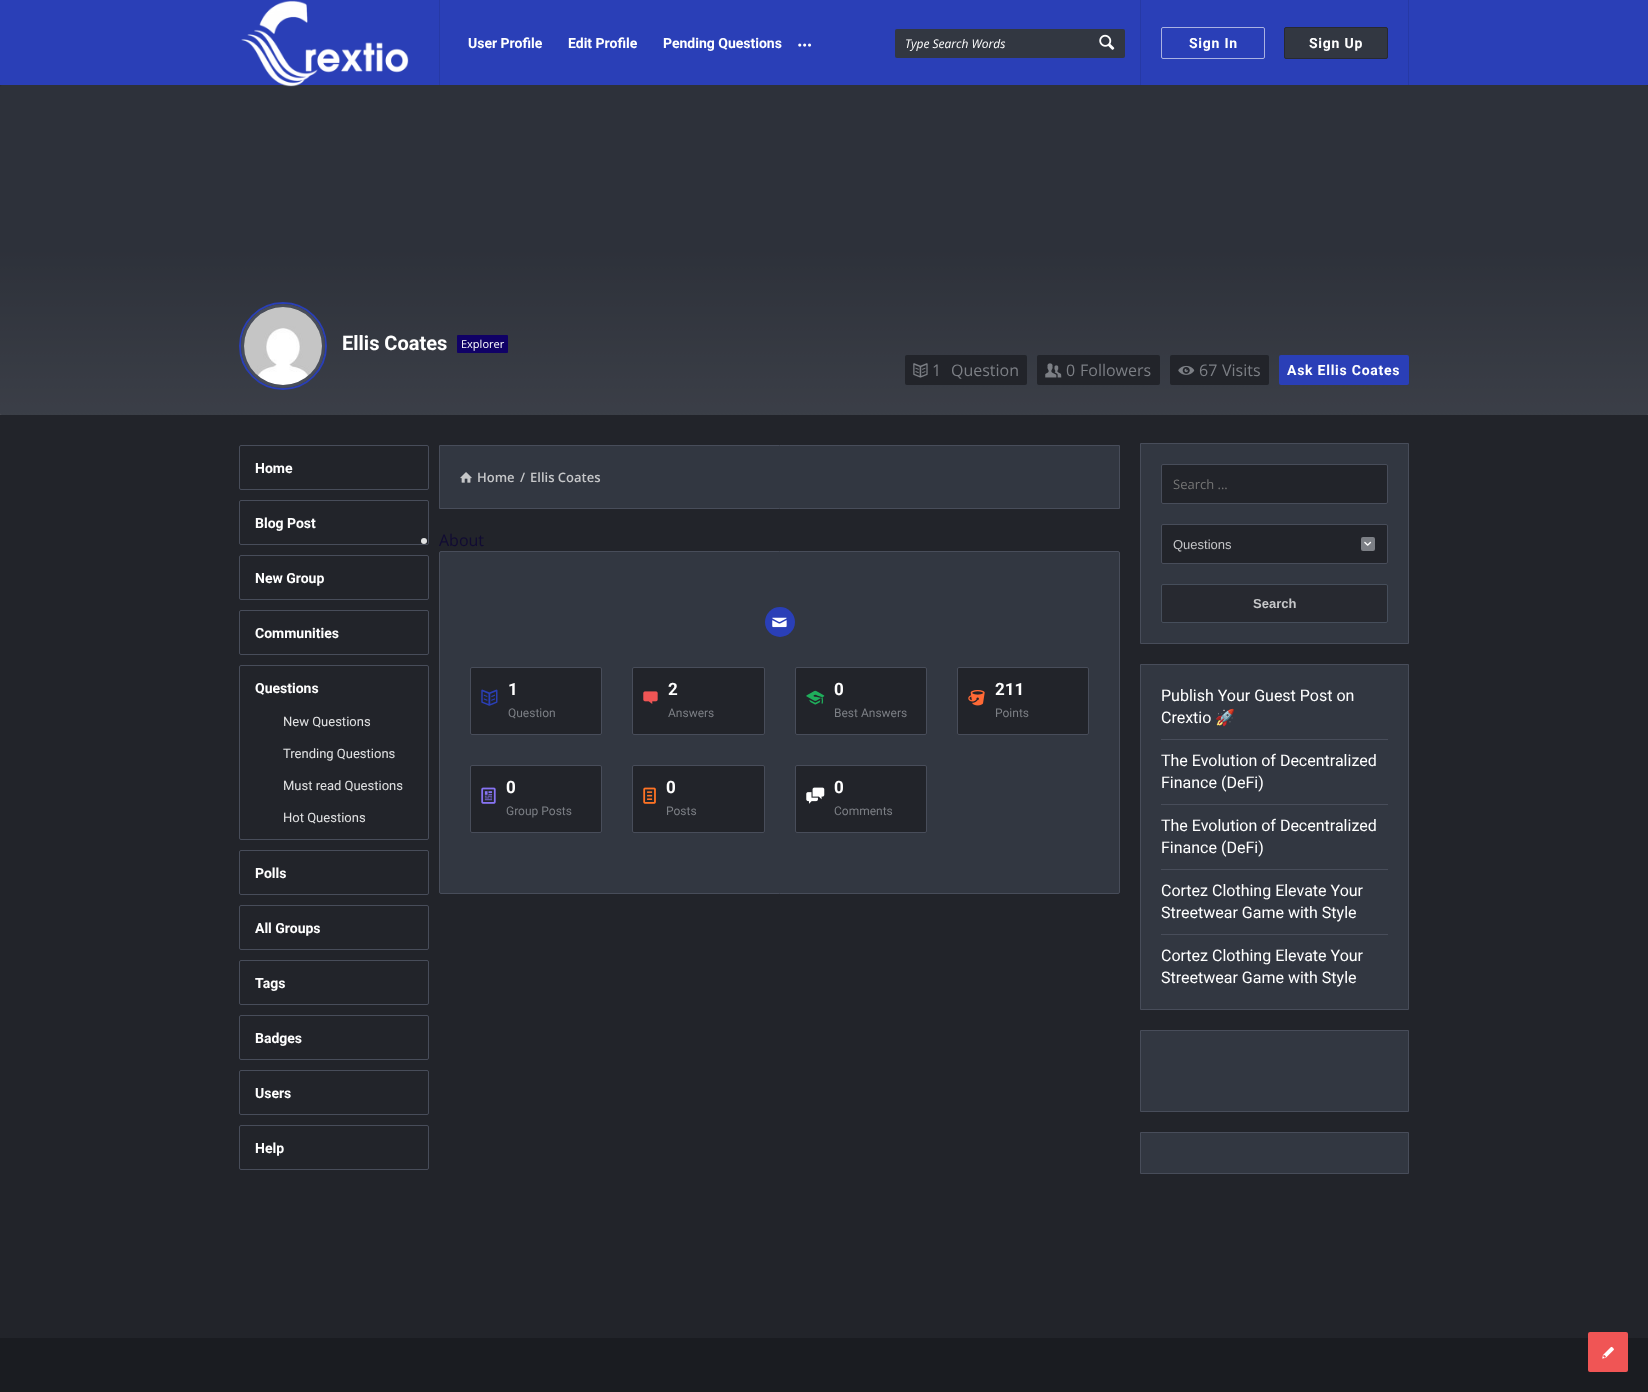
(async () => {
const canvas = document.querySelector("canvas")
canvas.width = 1648
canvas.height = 1392
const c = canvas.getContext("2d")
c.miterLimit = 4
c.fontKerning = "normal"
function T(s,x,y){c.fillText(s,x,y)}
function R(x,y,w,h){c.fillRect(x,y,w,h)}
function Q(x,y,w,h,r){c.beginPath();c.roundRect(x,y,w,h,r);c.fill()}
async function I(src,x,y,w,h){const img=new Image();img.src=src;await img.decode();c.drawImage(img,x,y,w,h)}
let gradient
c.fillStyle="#22242a"
R(0,0,1648,1392)
c.fillStyle="#2a3fb7"
R(0,0,1648,85)
c.fillStyle="#2639a5"
R(439,0,1,85)
gradient = c.createLinearGradient(0,415,0,85)
gradient.addColorStop(0,"#494b52")
gradient.addColorStop(.5,"#272930")
c.fillStyle = gradient
R(0,85,1648,330)
c.fillStyle="#32374199"
Q(0,85,1648,330,2)
await I("1.png",241,0,168,87)
c.font="bold 14px Roboto"
c.fillStyle="#fff"
T("User Profile",468,48)
T("Edit Profile",568,48)
T("Pending Questions",663,48)
await I("2.png",798,43,14,4)
c.fillStyle="#323741"
Q(895,29,230,29,2)
c.font="italic 12px Open Sans"
c.fillStyle="#fff"
T("Type Search Words",905,48)
await I("3.png",1099,34,16,16)
c.fillStyle="#2639a5"
R(1408,0,1,85)
R(1140,0,1,85)
c.beginPath()
c.roundRect(1161.5,27.5,103,31,1.5)
c.strokeStyle="#aab2e2"
c.stroke()
c.letterSpacing="0.75px"
c.font="bold 14px Roboto"
c.fillStyle="#fff"
T("Sign In",1189,48)
c.fillStyle="#323741"
c.beginPath()
c.roundRect(1284.5,27.5,103,31,1.5)
c.fill()
c.strokeStyle="#272930"
c.stroke()
c.fillStyle="#fff"
T("Sign Up",1309,48)
c.beginPath()
c.arc(283,346,43,0,7)
c.strokeStyle="#2a3fb7"
c.lineWidth=2
c.stroke()
c.beginPath()
c.arc(283,346,40.5,0,7)
c.strokeStyle="#484d5a"
c.lineWidth=3
c.stroke()
await I("4.png",244,307,78,78)
c.letterSpacing="0px"
c.font="bold 20px Roboto"
T("Ellis Coates",342,350)
c.fillStyle="#100166"
Q(457,335,51,18,1)
c.font="11px Open Sans"
c.fillStyle="#fff"
T("Explorer",461,348)
c.fillStyle="#22242a"
Q(905,355,122,30,2)
await I("5.png",913,363,15,15)
c.font="16px Open Sans"
c.fillStyle="#7c7f85"
T("1",932,376)
T("Question",951,376)
c.fillStyle="#22242a"
Q(1037,355,123,30,2)
await I("6.png",1045,363,17,15)
c.fillStyle="#7c7f85"
T("0",1066,376)
T("Followers",1080,376)
c.fillStyle="#22242a"
Q(1170,355,99,30,2)
await I("7.png",1178,365,17,10)
c.fillStyle="#7c7f85"
T("67",1199,376)
T("Visits",1222,376)
c.fillStyle="#2a3fb7"
Q(1279,355,130,30,2)
c.letterSpacing="0.75px"
c.font="bold 14px Roboto"
c.fillStyle="#fff"
T("Ask Ellis Coates",1287,375)
c.beginPath()
c.roundRect(239.5,445.5,189,44,1.5)
c.lineWidth=1
c.stroke()
c.letterSpacing="0px"
T("Home",255,473)
c.beginPath()
c.roundRect(239.5,500.5,189,44,1.5)
c.stroke()
T("Blog Post",255,528)
c.beginPath()
c.roundRect(239.5,555.5,189,44,1.5)
c.stroke()
T("New Group",255,583)
c.beginPath()
c.roundRect(239.5,610.5,189,44,1.5)
c.stroke()
T("Communities",255,638)
c.beginPath()
c.roundRect(239.5,665.5,189,174,1.5)
c.stroke()
T("Questions",255,693)
c.font="13px Roboto"
c.fillStyle="#e0e1e2"
T("New Questions",283,726)
T("Trending Questions",283,758)
T("Must read Questions",283,790)
T("Hot Questions",283,822)
c.beginPath()
c.roundRect(239.5,850.5,189,44,1.5)
c.stroke()
c.font="bold 14px Roboto"
c.fillStyle="#fff"
T("Polls",255,878)
c.beginPath()
c.roundRect(239.5,905.5,189,44,1.5)
c.stroke()
T("All Groups",255,933)
c.beginPath()
c.roundRect(239.5,960.5,189,44,1.5)
c.stroke()
T("Tags",255,988)
c.beginPath()
c.roundRect(239.5,1015.5,189,44,1.5)
c.stroke()
T("Badges",255,1043)
c.beginPath()
c.roundRect(239.5,1070.5,189,44,1.5)
c.stroke()
T("Users",255,1098)
c.beginPath()
c.roundRect(239.5,1125.5,189,44,1.5)
c.stroke()
T("Help",255,1153)
c.fillStyle="#323741"
c.beginPath()
c.rect(439.5,445.5,680,63)
c.fill()
c.stroke()
await I("8.png",460,472,12,11)
c.font="600 13px Open Sans"
c.fillStyle="#c6c7c9"
T("Home",477,482)
T("/",520,482)
T("Ellis Coates",530,482)
c.fillStyle="#e0e1e2"
c.beginPath()
c.arc(424,541,3,0,7)
c.fill()
c.font="16px Open Sans"
c.fillStyle="#110b33"
T("About",439,546)
c.fillStyle="#323741"
c.beginPath()
c.roundRect(439.5,551.5,680,342,1.5)
c.fill()
c.stroke()
c.fillStyle="#2a3fb7"
c.beginPath()
c.arc(780,622,15,0,7)
c.fill()
await I("9.png",772,617,15,11)
c.fillStyle="#22242a"
c.beginPath()
c.roundRect(470.5,667.5,131,67,1.5)
c.fill()
c.stroke()
await I("10.png",481,689,17,17)
c.font="bold 17px Roboto"
c.fillStyle="#fff"
T("1",508,695)
c.font="12px Roboto"
c.fillStyle="#7c7f85"
T("Question",508,717)
c.fillStyle="#22242a"
c.beginPath()
c.roundRect(632.5,667.5,132,67,1.5)
c.fill()
c.stroke()
await I("11.png",643,691,15,13)
c.font="bold 17px Roboto"
c.fillStyle="#fff"
T("2",668,695)
c.font="12px Roboto"
c.fillStyle="#7c7f85"
T("Answers",668,717)
c.fillStyle="#22242a"
c.beginPath()
c.roundRect(795.5,667.5,131,67,1.5)
c.fill()
c.stroke()
await I("12.png",806,690,19,15)
c.font="bold 17px Roboto"
c.fillStyle="#fff"
T("0",834,695)
c.font="12px Roboto"
c.fillStyle="#7c7f85"
T("Best Answers",834,717)
c.fillStyle="#22242a"
c.beginPath()
c.roundRect(957.5,667.5,131,67,1.5)
c.fill()
c.stroke()
await I("13.png",968,690,17,16)
c.font="bold 17px Roboto"
c.fillStyle="#fff"
T("211",995,695)
c.font="12px Roboto"
c.fillStyle="#7c7f85"
T("Points",995,717)
c.fillStyle="#22242a"
c.beginPath()
c.roundRect(470.5,765.5,131,67,1.5)
c.fill()
c.stroke()
await I("14.png",481,787,15,17)
c.font="bold 17px Roboto"
c.fillStyle="#fff"
T("0",506,793)
c.font="12px Roboto"
c.fillStyle="#7c7f85"
T("Group Posts",506,815)
c.fillStyle="#22242a"
c.beginPath()
c.roundRect(632.5,765.5,132,67,1.5)
c.fill()
c.stroke()
await I("15.png",643,787,13,17)
c.font="bold 17px Roboto"
c.fillStyle="#fff"
T("0",666,793)
c.font="12px Roboto"
c.fillStyle="#7c7f85"
T("Posts",666,815)
c.fillStyle="#22242a"
c.beginPath()
c.roundRect(795.5,765.5,131,67,1.5)
c.fill()
c.stroke()
await I("16.png",806,787,19,17)
c.font="bold 17px Roboto"
c.fillStyle="#fff"
T("0",834,793)
c.font="12px Roboto"
c.fillStyle="#7c7f85"
T("Comments",834,815)
c.fillStyle="#323741"
c.beginPath()
c.rect(1140.5,443.5,268,200)
c.fill()
c.stroke()
c.fillStyle="#22242a"
c.beginPath()
c.roundRect(1161.5,464.5,226,39,1.5)
c.fill()
c.stroke()
c.font="13px Open Sans"
c.fillStyle="#757575"
T("Search ...",1173,489)
c.fillStyle="#22242a"
c.beginPath()
c.roundRect(1161.5,524.5,226,39,1.5)
c.fill()
c.stroke()
c.font="13px Liberation Sans"
c.fillStyle="#c6c7c9"
T("Questions",1173,549)
c.fillStyle="#7c7f85"
Q(1361,537,14,14,2)
await I("17.png",1364,541,8,5)
c.fillStyle="#272930"
c.beginPath()
c.roundRect(1161.5,584.5,226,38,1.5)
c.fill()
c.strokeStyle="#464e5b"
c.stroke()
c.font="bold 13px Liberation Sans"
c.fillStyle="#c6c7c9"
T("Search",1253,608)
c.fillStyle="#323741"
c.beginPath()
c.rect(1140.5,664.5,268,345)
c.fill()
c.strokeStyle="#484d5a"
c.stroke()
c.fillStyle="#484d5a"
R(1161,739,227,1)
c.font="16px Roboto"
c.fillStyle="#fff"
T("Publish Your Guest Post on",1161,701)
T("Crextio",1161,723)
c.font="16px Noto Color Emoji"
T("🚀",1215,723)
c.fillStyle="#484d5a"
R(1161,804,227,1)
c.font="16px Roboto"
c.fillStyle="#fff"
T("The Evolution of Decentralized",1161,766)
T("Finance (DeFi)",1161,788)
c.fillStyle="#484d5a"
R(1161,869,227,1)
c.fillStyle="#fff"
T("The Evolution of Decentralized",1161,831)
T("Finance (DeFi)",1161,853)
c.fillStyle="#484d5a"
R(1161,934,227,1)
c.fillStyle="#fff"
T("Cortez Clothing Elevate Your",1161,896)
T("Streetwear Game with Style",1161,918)
T("Cortez Clothing Elevate Your",1161,961)
T("Streetwear Game with Style",1161,983)
c.fillStyle="#323741"
c.beginPath()
c.rect(1140.5,1030.5,268,81)
c.fill()
c.stroke()
c.beginPath()
c.rect(1140.5,1132.5,268,41)
c.fill()
c.stroke()
c.fillStyle="#1a1c21"
R(0,1338,1648,54)
c.fillStyle="#f05555"
Q(1588,1332,40,40,2)
await I("18.png",1602,1346,12,13)
})()
